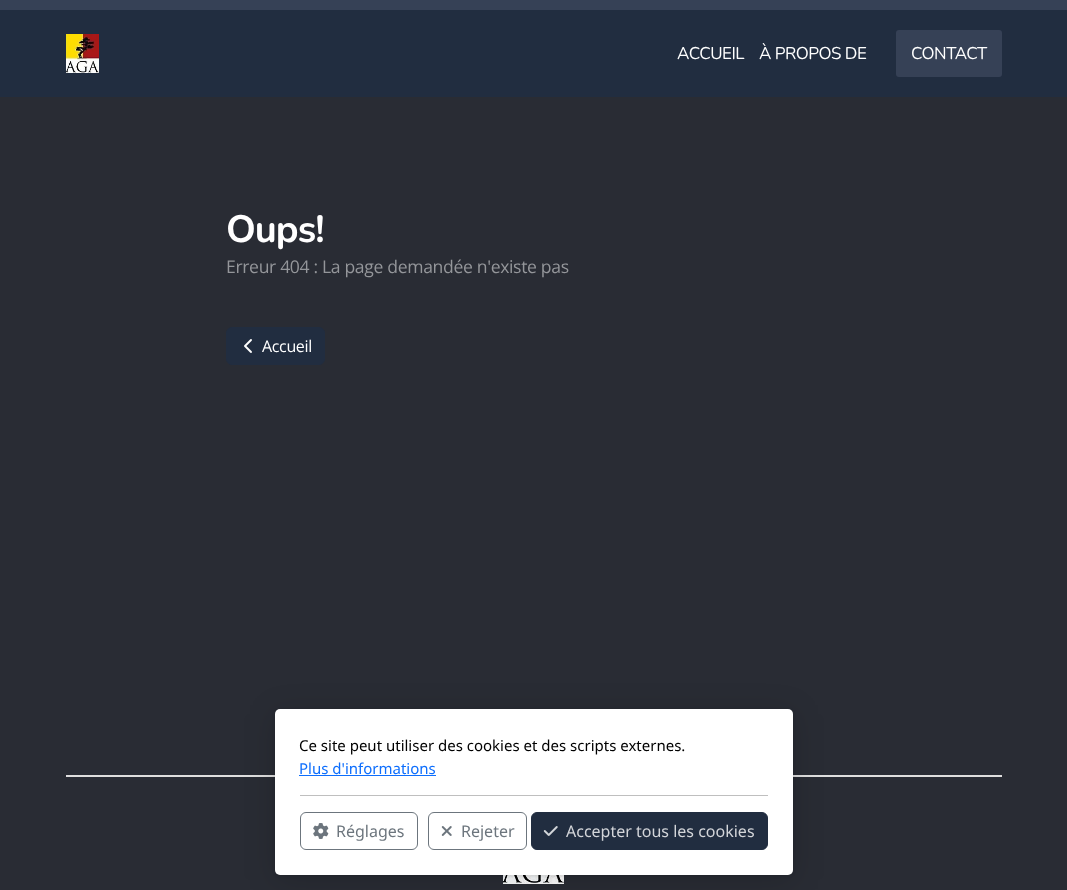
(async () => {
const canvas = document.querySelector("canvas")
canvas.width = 1067
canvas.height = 890
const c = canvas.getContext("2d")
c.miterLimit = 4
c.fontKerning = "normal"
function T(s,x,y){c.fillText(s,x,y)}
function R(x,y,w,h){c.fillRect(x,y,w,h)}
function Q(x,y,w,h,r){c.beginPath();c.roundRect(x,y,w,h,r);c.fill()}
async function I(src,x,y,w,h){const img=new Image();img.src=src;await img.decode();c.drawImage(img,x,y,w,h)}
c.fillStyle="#292c34"
R(0,0,1067,890)
c.fillStyle="#212d40"
R(0,10,1067,87)
c.fillStyle="#364156"
R(0,0,1067,10)
await I("1.png",66,34,33,39)
c.letterSpacing="-0.5px"
c.font="200 17px 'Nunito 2'"
c.fillStyle="#fff"
T("ACCUEIL",677,59)
T("À PROPOS DE",759,59)
c.fillStyle="#364156"
Q(896,30,106,47,3)
c.fillStyle="#fff"
T("CONTACT",911,59)
c.letterSpacing="-1px"
c.font="200 38px Nunito"
T("Oups!",226,242)
c.letterSpacing="-0.35px"
c.font="17.6px Open Sans"
c.fillStyle="#94969a"
T("Erreur 404 : La page demandée n'existe pas",226,273)
c.fillStyle="#212d40"
c.beginPath()
c.roundRect(226.5,327.5,98,37,5.5)
c.fill()
c.strokeStyle="#212d40"
c.stroke()
await I("2.png",244,339,8,14)
c.font="16px Open Sans"
c.fillStyle="#fff"
T("Accueil",262,352)
c.fillStyle="#dedede"
R(66,775,936,2)
await I("3.png",503,875,61,9)
c.fillStyle="#00000029"
c.filter="blur(15px)"
c.beginPath()
c.roundRect(275,714,518,166,5)
c.fill()
c.filter="none"
c.fillStyle="#0000001a"
c.filter="blur(1.5px)"
c.beginPath()
c.roundRect(275,710,518,166,5)
c.fill()
c.filter="none"
c.fillStyle="#fff"
Q(275,709,518,166,5)
c.letterSpacing="0px"
c.font="15px Noto Sans"
c.fillStyle="#000"
T("Ce site peut utiliser des cookies et des scripts externes.",299,751)
c.fillStyle="#0d6efd"
T("Plus d'informations",299,774)
R(299,775,137,1)
c.fillStyle="#bfbfbf"
R(300,795,468,1)
c.beginPath()
c.roundRect(300.5,812.5,117,37,5.5)
c.strokeStyle="#6c757d"
c.stroke()
await I("4.png",313,823,16,16)
c.font="16px Noto Sans"
c.fillStyle="#6c757d"
T("Réglages",336,837)
c.beginPath()
c.roundRect(428.5,812.5,98,37,5.5)
c.stroke()
await I("5.png",441,826,11,10)
T("Rejeter",461,837)
c.fillStyle="#212d40"
c.beginPath()
c.roundRect(531.5,812.5,236,37,5.5)
c.fill()
c.strokeStyle="#212d40"
c.stroke()
await I("6.png",543,826,15,10)
c.fillStyle="#d3d5d9"
T("Accepter tous les cookies",566,837)
})()
